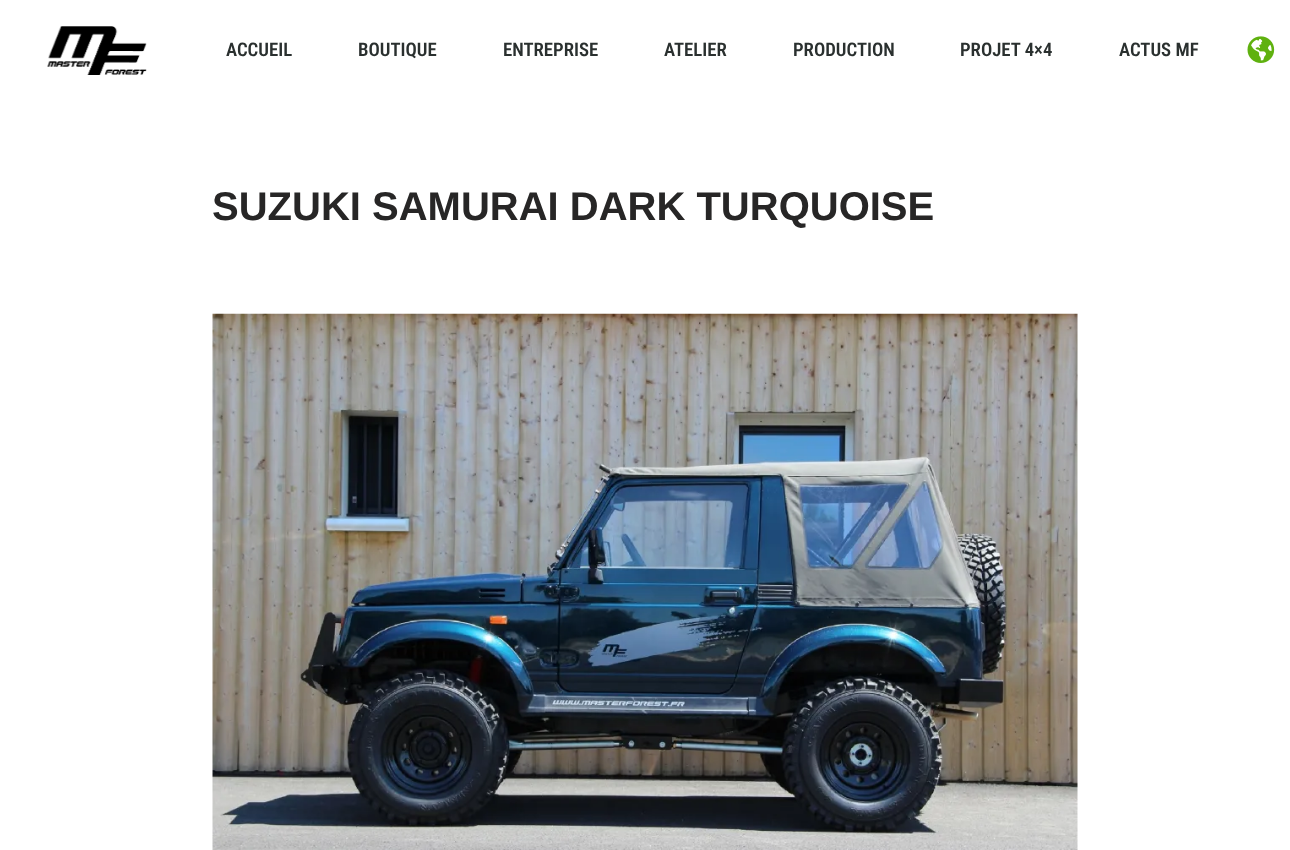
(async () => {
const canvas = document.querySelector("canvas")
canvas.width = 1290
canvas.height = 850
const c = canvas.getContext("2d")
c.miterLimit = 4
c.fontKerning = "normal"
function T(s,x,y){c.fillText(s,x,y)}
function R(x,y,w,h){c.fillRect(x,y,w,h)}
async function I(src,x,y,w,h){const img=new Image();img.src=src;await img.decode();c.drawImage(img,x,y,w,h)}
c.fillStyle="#fff"
R(0,0,1290,850)
await I("1.png",47,26,100,49)
c.font="600 18.75px Roboto Condensed"
c.fillStyle="#2a302f"
T("ACCUEIL",226,56)
T("BOUTIQUE",358,56)
T("ENTREPRISE",503,56)
T("ATELIER",664,56)
T("PRODUCTION",793,56)
T("PROJET 4×4",960,56)
T("ACTUS MF",1119,56)
await I("2.png",1247,36,28,27)
c.font="bold 40px Liberation Sans"
c.fillStyle="#272626"
T("SUZUKI SAMURAI DARK TURQUOISE",212,220)
await I("3.png",212,313,866,537)
})()
